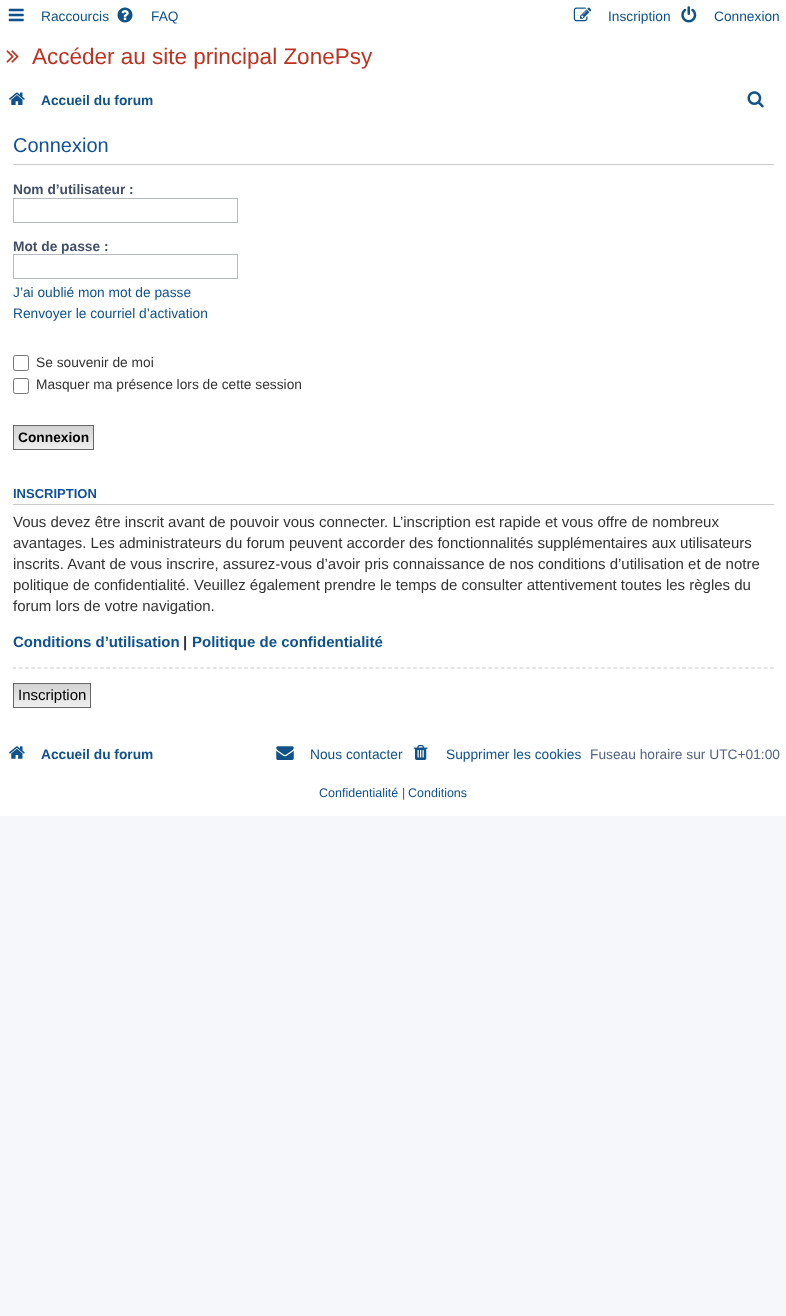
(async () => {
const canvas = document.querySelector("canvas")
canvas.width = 786
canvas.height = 1316
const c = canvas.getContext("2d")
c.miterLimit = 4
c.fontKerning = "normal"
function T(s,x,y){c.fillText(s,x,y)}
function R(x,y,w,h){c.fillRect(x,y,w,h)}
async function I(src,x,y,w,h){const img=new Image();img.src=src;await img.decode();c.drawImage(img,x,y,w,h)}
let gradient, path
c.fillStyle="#f5f7fa"
R(0,0,786,1316)
c.fillStyle="#fff"
R(0,0,786,816)
await I("1.png",8,8,16,14)
c.font="13.75px Liberation Sans"
c.fillStyle="#105289"
T("Raccourcis",41,21)
await I("2.png",117,7,16,16)
T("FAQ",151,21)
await I("3.png",573,7,19,15)
T("Inscription",608,21)
await I("4.png",681,6,16,17)
T("Connexion",714,21)
await I("5.png",6,50,13,13)
c.font="22.5px Liberation Sans"
c.fillStyle="#b32"
T("Accéder au site principal ZonePsy",32,64)
await I("6.png",9,92,16,13)
c.font="bold 13.75px Liberation Sans"
c.fillStyle="#105289"
T("Accueil du forum",41,105)
await I("7.png",747,91,17,17)
c.fillStyle="#ccc"
R(13,164,761,1)
c.font="20px Liberation Sans"
c.fillStyle="#115098"
T("Connexion",13,152)
c.font="bold 13.75px Liberation Sans"
c.fillStyle="#425067"
T("Nom d’utilisateur :",13,194)
c.strokeStyle="#b4bac0"
c.strokeRect(13.5,198.5,224,24)
T("Mot de passe :",13,251)
c.strokeRect(13.5,254.5,224,24)
c.font="13.75px Liberation Sans"
c.fillStyle="#105289"
T("J’ai oublié mon mot de passe",13,297)
T("Renvoyer le courriel d’activation",13,318)
c.beginPath()
c.roundRect(13.5,355.5,15,15,2)
c.strokeStyle="#767676"
c.stroke()
c.fillStyle="#333"
T("Se souvenir de moi",36,367)
c.beginPath()
c.roundRect(13.5,378.5,15,15,2)
c.stroke()
T("Masquer ma présence lors de cette session",36,389)
gradient = c.createLinearGradient(53,426,53,449)
gradient.addColorStop(0,"#d2d2d2")
gradient.addColorStop(1,"#efefef")
c.fillStyle = gradient
R(14,426,79,23)
c.strokeStyle="#666"
c.strokeRect(13.5,425.5,80,24)
c.font="bold 13.75px Liberation Sans"
c.fillStyle="#000"
T("Connexion",18,442)
c.fillStyle="#ccc"
R(13,504,761,1)
c.font="bold 13px Liberation Sans"
c.fillStyle="#115098"
T("INSCRIPTION",13,498)
c.font="15px Liberation Sans"
c.fillStyle="#333"
T("Vous devez être inscrit avant de pouvoir vous connecter. L’inscription est rapide et vous offre de nombreux",13,527)
T("avantages. Les administrateurs du forum peuvent accorder des fonctionnalités supplémentaires aux utilisateurs",13,548)
T("inscrits. Avant de vous inscrire, assurez-vous d’avoir pris connaissance de nos conditions d’utilisation et de notre",13,569)
T("politique de confidentialité. Veuillez également prendre le temps de consulter attentivement toutes les règles du",13,590)
T("forum lors de votre navigation.",13,611)
c.font="bold 15px Liberation Sans"
c.fillStyle="#105289"
T("Conditions d’utilisation",13,647)
c.fillStyle="#333"
T("|",183,647)
c.fillStyle="#105289"
T("Politique de confidentialité",192,647)
path = new Path2D("M12.5 668h761.5")
c.strokeStyle="#ccc"
c.lineWidth=1.2
c.setLineDash([3.75,2.51])
c.stroke(path)
c.fillStyle="#efefef"
R(14,706,76,1)
gradient = c.createLinearGradient(52,684,52,706)
gradient.addColorStop(0,"#d2d2d2")
gradient.addColorStop(1,"#efefef")
c.fillStyle = gradient
R(14,684,76,22)
c.strokeStyle="#666"
c.lineWidth=1
c.setLineDash([])
c.strokeRect(13.5,683.5,77,24)
c.font="15px Liberation Sans"
c.fillStyle="#000"
T("Inscription",18,700)
await I("8.png",9,746,16,13)
c.font="bold 13.75px Liberation Sans"
c.fillStyle="#105289"
T("Accueil du forum",41,759)
await I("9.png",276,746,18,14)
c.font="13.75px Liberation Sans"
T("Nous contacter",310,759)
await I("10.png",413,745,15,15)
T("Supprimer les cookies",446,759)
c.fillStyle="#536482"
T("Fuseau horaire sur UTC+01:00",590,759)
c.font="12.5px Liberation Sans"
c.fillStyle="#105289"
T("Confidentialité",319,797)
c.fillStyle="#555"
T("|",402,797)
c.fillStyle="#105289"
T("Conditions",408,797)
})()
